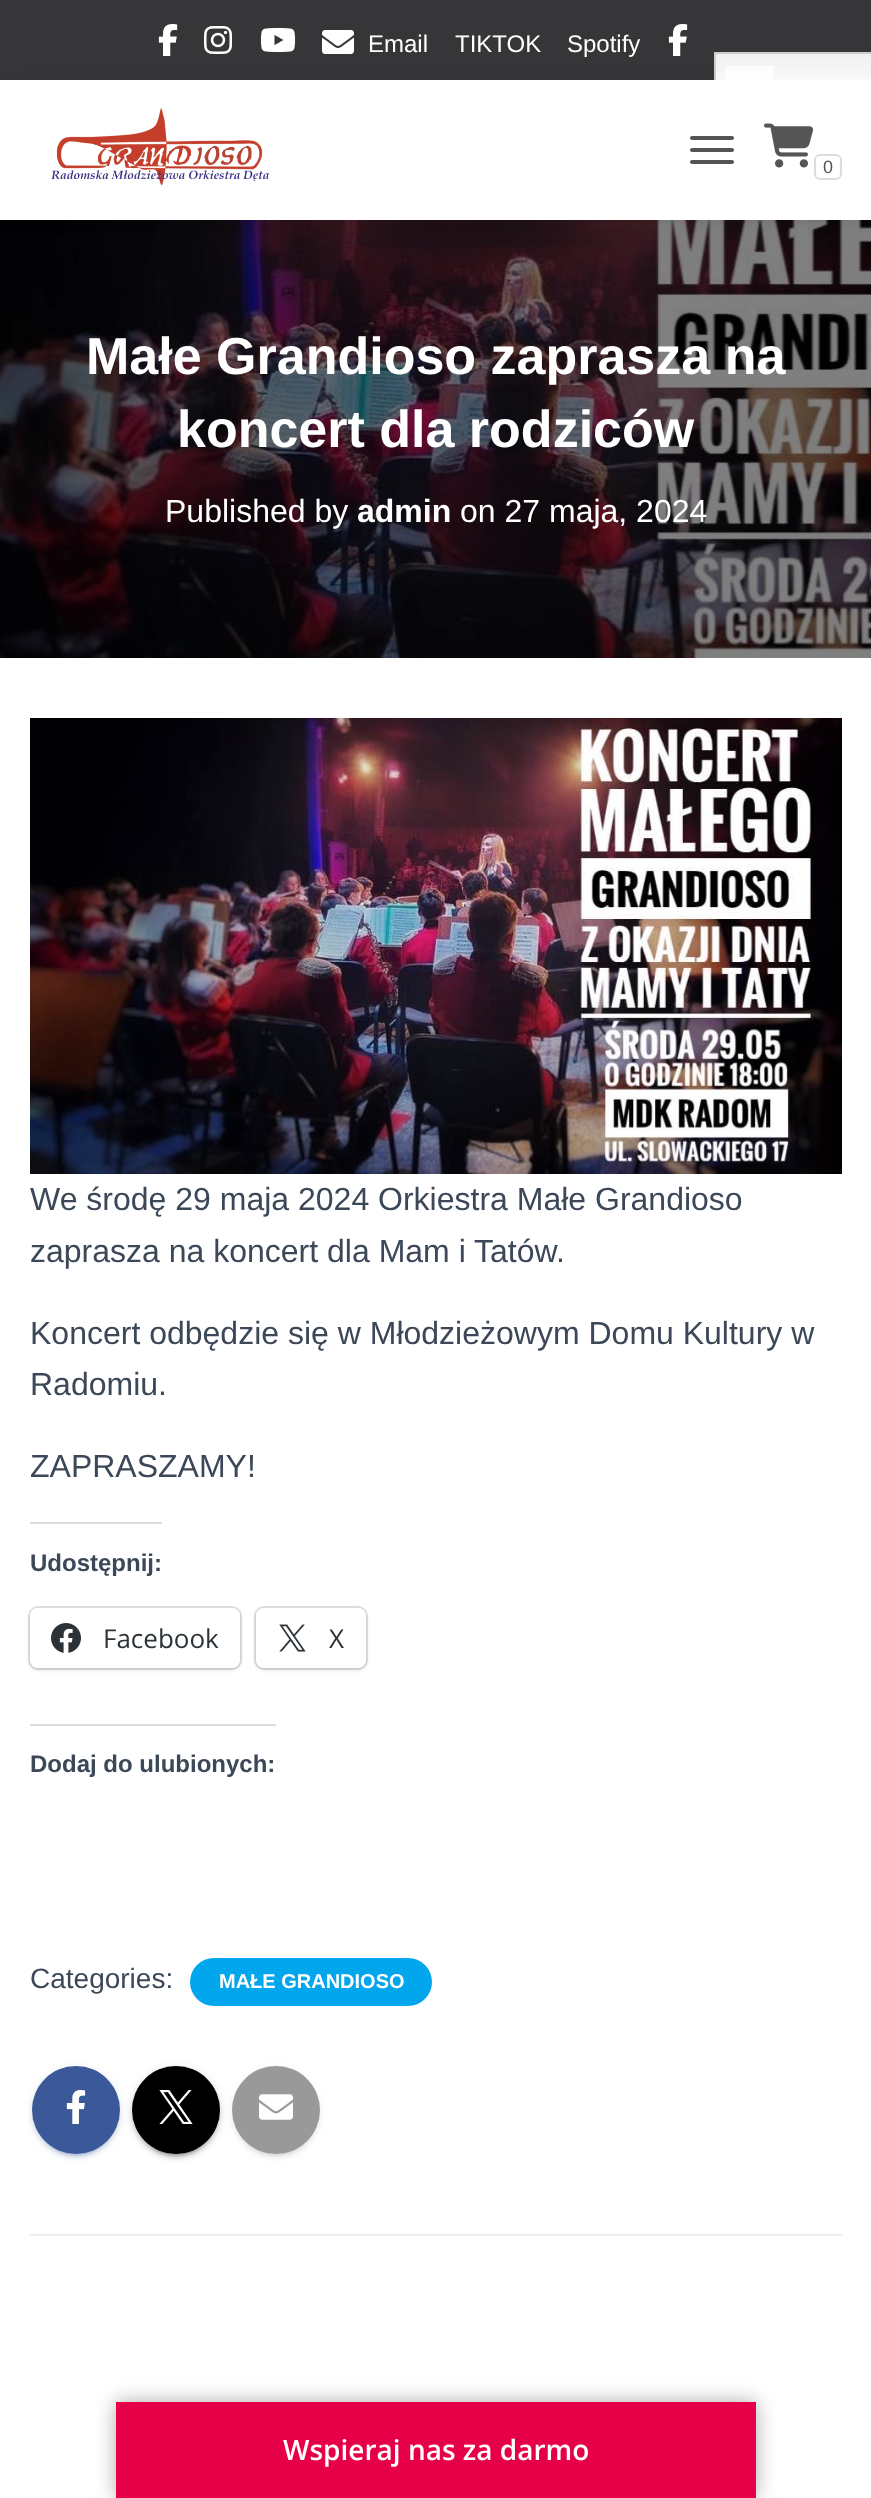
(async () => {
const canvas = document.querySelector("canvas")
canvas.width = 871
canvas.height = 2498
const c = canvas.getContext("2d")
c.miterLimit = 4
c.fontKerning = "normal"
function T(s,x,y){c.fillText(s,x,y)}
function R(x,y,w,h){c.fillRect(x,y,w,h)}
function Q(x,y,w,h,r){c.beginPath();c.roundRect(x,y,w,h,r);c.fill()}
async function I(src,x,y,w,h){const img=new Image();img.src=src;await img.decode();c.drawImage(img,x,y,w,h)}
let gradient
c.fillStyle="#363537"
R(0,0,871,2498)
await I("1.png",158,24,20,32)
await I("2.png",204,26,28,28)
await I("3.png",260,28,36,24)
await I("4.png",322,30,32,24)
c.font="24px Liberation Sans"
c.fillStyle="#fff"
T("Email",368,52)
T("TIKTOK",455,52)
T("Spotify",567,52)
await I("1.png",668,24,20,32)
await I("7.png",0,220,871,438)
c.fillStyle="#0000006b"
c.filter="blur(10px)"
c.beginPath()
c.rect(12,94,848,116)
c.fill()
c.filter="none"
gradient = c.createLinearGradient(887,52,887,116)
gradient.addColorStop(0,"#efefef")
gradient.addColorStop(.7,"#fff")
c.fillStyle = gradient
R(716,54,155,26)
c.fillStyle="#fff"
R(0,80,871,140)
c.save()
c.beginPath()
c.rect(714,52,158,28)
c.clip()
c.strokeStyle="#ccc"
c.lineWidth=2
c.strokeRect(715,53,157,62)
c.restore()
c.fillStyle="#ffffffcc"
R(726,66,48,14)
await I("5.png",51,108,218,78)
c.fillStyle="#555"
Q(690,136,44,4,2)
Q(690,148,44,4,2)
Q(690,160,44,4,2)
await I("6.png",764,123,50,45)
c.beginPath()
c.roundRect(815,155,26,24,5)
c.strokeStyle="#ddd"
c.lineWidth=2
c.stroke()
c.font="18px Liberation Sans"
T("0",823,173)
c.font="bold 52px Liberation Sans"
c.fillStyle="#fff"
T("Małe Grandioso zaprasza na",86,374)
T("koncert dla rodziców",177,447)
c.font="32px Liberation Sans"
T("Published by",165,522)
c.font="bold 32px Liberation Sans"
T("admin",357,522)
c.font="32px Liberation Sans"
T("on 27 maja, 2024",460,522)
R(0,658,871,1840)
await I("8.png",30,718,812,456)
c.fillStyle="#3c4858"
T("We środę 29 maja 2024 Orkiestra Małe Grandioso",30,1210)
T("zaprasza na koncert dla Mam i Tatów.",30,1262)
T("Koncert odbędzie się w Młodzieżowym Domu Kultury w",30,1344)
T("Radomiu.",30,1395)
T("ZAPRASZAMY!",30,1477)
c.fillStyle="#dcdcde"
R(30,1522,132,2)
c.font="bold 24px Liberation Sans"
c.fillStyle="#3c4858"
T("Udostępnij:",30,1571)
c.beginPath()
c.roundRect(29,1607,212,62,9)
c.strokeStyle="#e0e0e0"
c.stroke()
c.fillStyle="#0000001f"
c.filter="blur(2px)"
c.beginPath()
c.roundRect(30,1610,210,60,8)
c.fill()
c.filter="none"
c.fillStyle="#fff"
Q(30,1608,210,60,8)
await I("9.png",51,1623,30,30)
c.font="26px Open Sans"
c.fillStyle="#2c3338"
T("Facebook",103,1648)
c.beginPath()
c.roundRect(255,1607,112,62,9)
c.stroke()
c.fillStyle="#0000001f"
c.filter="blur(2px)"
c.beginPath()
c.roundRect(256,1610,110,60,8)
c.fill()
c.filter="none"
c.fillStyle="#fff"
Q(256,1608,110,60,8)
await I("10.png",279,1624,27,28)
c.fillStyle="#2c3338"
T("X",329,1648)
c.fillStyle="#dcdcde"
R(30,1724,246,2)
c.font="bold 24px Liberation Sans"
c.fillStyle="#3c4858"
T("Dodaj do ulubionych:",30,1772)
c.font="28px Liberation Sans"
T("Categories:",30,1988)
c.fillStyle="#02a6ed"
Q(190,1958,242,48,24)
c.font="bold 20px Liberation Sans"
c.fillStyle="#fff"
T("MAŁE GRANDIOSO",219,1988)
c.fillStyle="#3b59981f"
c.filter="blur(5px)"
c.beginPath()
c.roundRect(32,2068,88,88,44)
c.fill()
c.filter="none"
c.fillStyle="#3b599833"
c.filter="blur(1px)"
c.beginPath()
c.roundRect(36,2076,80,80,40)
c.fill()
c.filter="none"
c.fillStyle="#3b599824"
c.filter="blur(2px)"
c.beginPath()
c.roundRect(32,2070,88,88,44)
c.fill()
c.filter="none"
c.fillStyle="#3b5998"
c.beginPath()
c.arc(76,2110,44,0,7)
c.fill()
await I("11.png",66,2090,20,34)
c.fillStyle="#0000001f"
c.filter="blur(5px)"
c.beginPath()
c.roundRect(132,2068,88,88,44)
c.fill()
c.filter="none"
c.fillStyle="#00000033"
c.filter="blur(1px)"
c.beginPath()
c.roundRect(136,2076,80,80,40)
c.fill()
c.filter="none"
c.fillStyle="#00000024"
c.filter="blur(2px)"
c.beginPath()
c.roundRect(132,2070,88,88,44)
c.fill()
c.filter="none"
c.fillStyle="#000"
c.beginPath()
c.arc(176,2110,44,0,7)
c.fill()
await I("12.png",159,2090,34,34)
c.fillStyle="#9999991f"
c.filter="blur(5px)"
c.beginPath()
c.roundRect(232,2068,88,88,44)
c.fill()
c.filter="none"
c.fillStyle="#99999933"
c.filter="blur(1px)"
c.beginPath()
c.roundRect(236,2076,80,80,40)
c.fill()
c.filter="none"
c.fillStyle="#99999924"
c.filter="blur(2px)"
c.beginPath()
c.roundRect(232,2070,88,88,44)
c.fill()
c.filter="none"
c.fillStyle="#999"
c.beginPath()
c.arc(276,2110,44,0,7)
c.fill()
await I("13.png",259,2094,34,26)
c.fillStyle="#eee"
R(30,2234,812,2)
c.fillStyle="#aaa"
c.filter="blur(10px)"
c.beginPath()
c.rect(116,2402,640,96)
c.fill()
c.filter="none"
c.fillStyle="#e50048"
R(116,2402,640,96)
c.font="600 28px Open Sans"
c.fillStyle="#fff"
T("Wspieraj nas za darmo",283,2460)
})()
